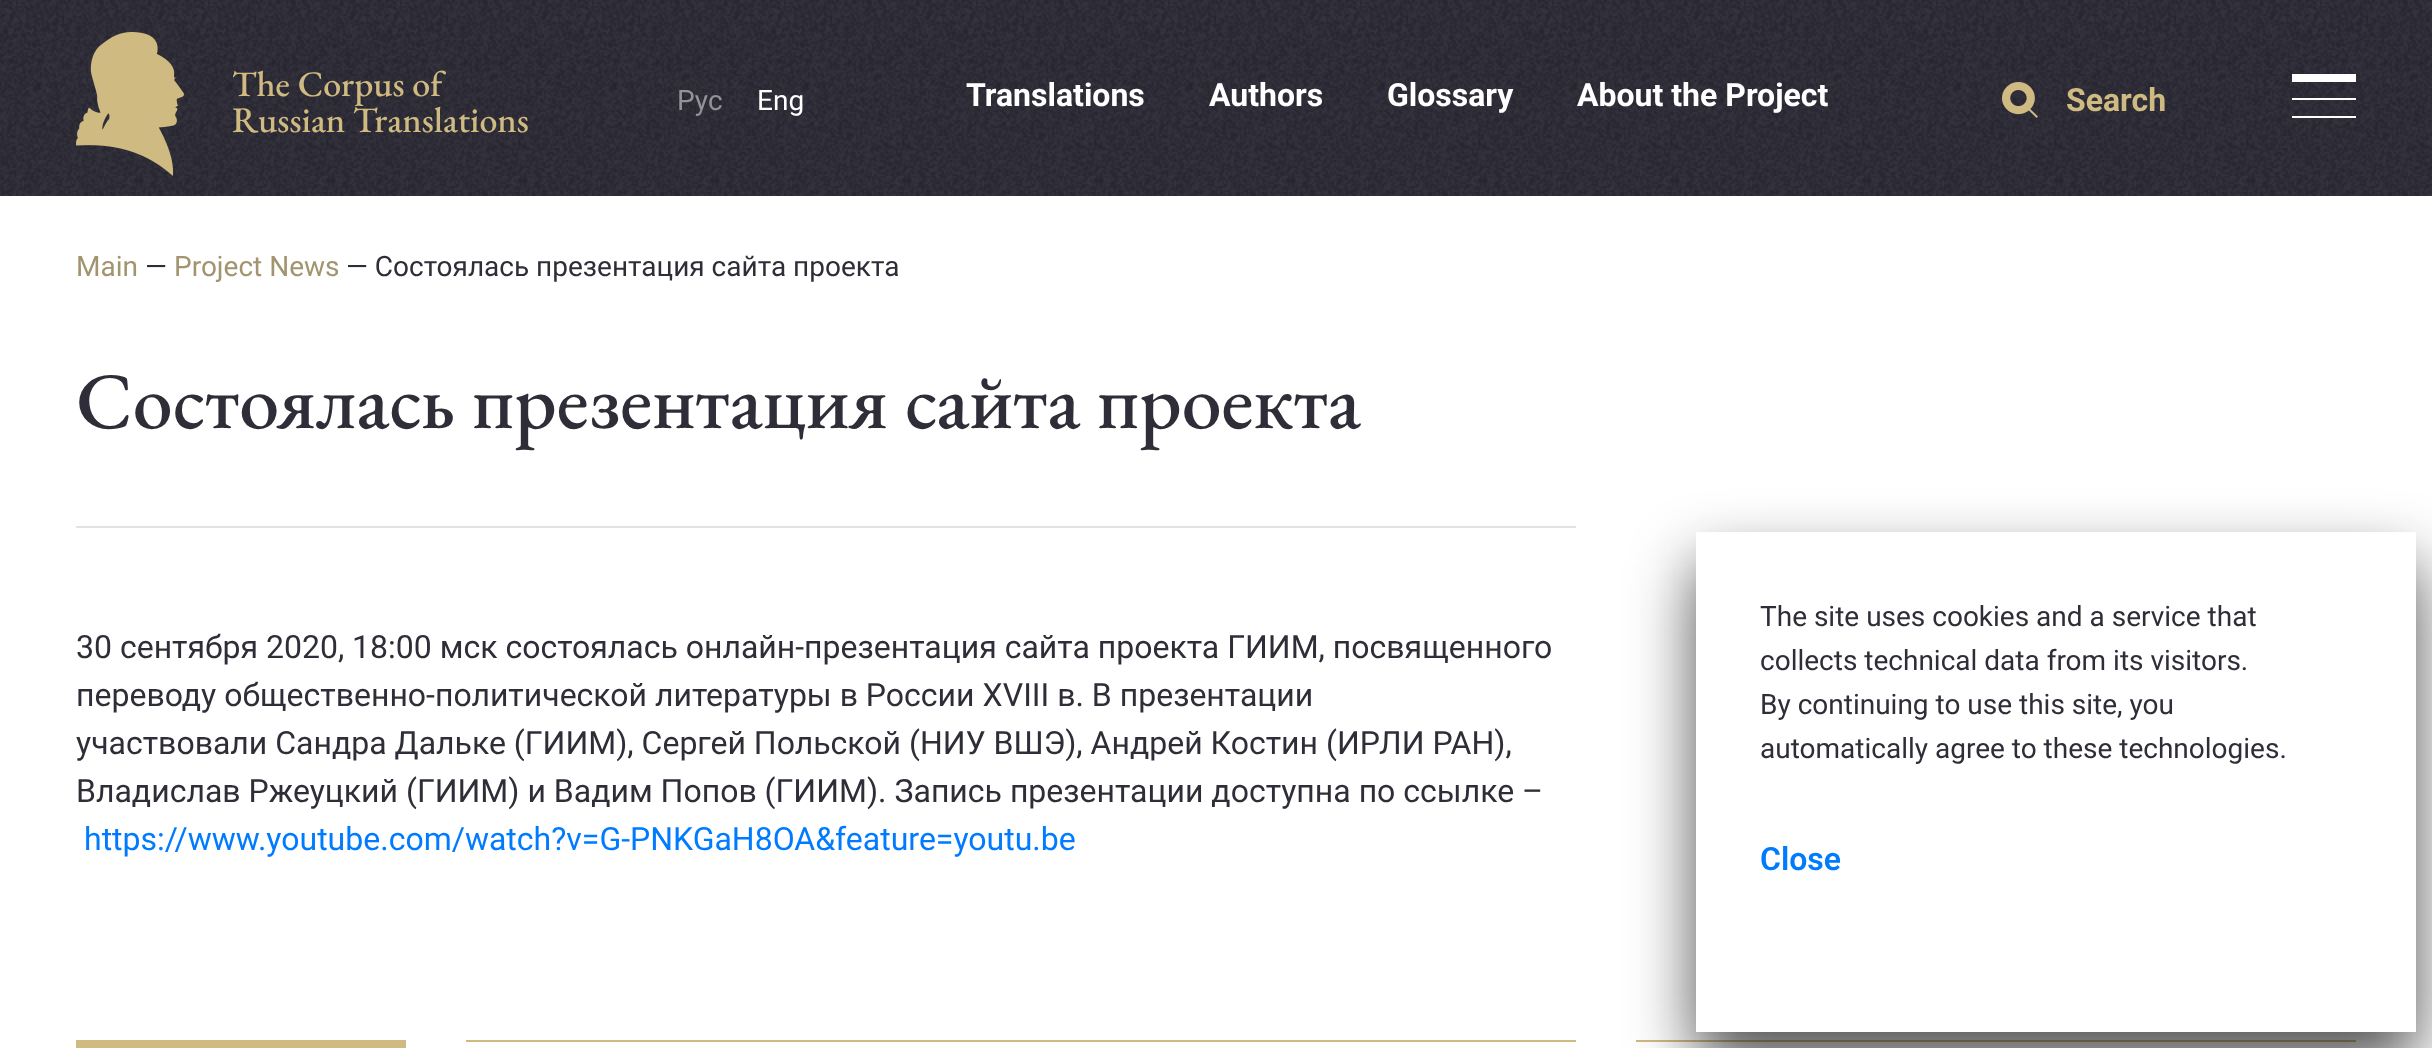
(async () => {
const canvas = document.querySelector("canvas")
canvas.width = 2432
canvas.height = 1048
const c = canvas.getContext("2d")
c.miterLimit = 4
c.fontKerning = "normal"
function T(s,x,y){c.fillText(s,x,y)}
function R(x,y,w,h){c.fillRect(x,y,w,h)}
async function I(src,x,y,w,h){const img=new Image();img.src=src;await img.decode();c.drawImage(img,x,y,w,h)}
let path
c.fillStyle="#fff"
R(0,0,2432,1048)
await I("1.png",0,0,2432,196)
await I("2.png",76,32,108,144)
c.font="500 36px EB Garamond"
c.fillStyle="#cfba81"
T("The Corpus of",232,96)
T("Russian Translations",232,132)
c.font="28px Roboto"
c.fillStyle="#929297"
T("Рус",677,110)
c.fillStyle="#fff"
T("Eng",757,110)
c.font="bold 32px Roboto"
T("Translations",966,106)
T("Authors",1209,106)
T("Glossary",1387,106)
T("About the Project",1577,106)
await I("3.png",2002,82,36,36)
c.fillStyle="#cfba81"
T("Search",2066,111)
c.fillStyle="#fff"
R(2292,74,64,8)
R(2292,98,64,2)
R(2292,116,64,2)
c.font="28px Roboto"
c.fillStyle="#a2946e"
T("Main",76,276)
c.fillStyle="#2f2e38"
T("—",145,276)
c.fillStyle="#a2946e"
T("Project News",174,276)
c.fillStyle="#2f2e38"
T("— Состоялась презентация сайта проекта",346,276)
c.font="500 80px EB Garamond"
T("Состоялась презентация сайта проекта",76,428)
c.fillStyle="#e2e2e2"
R(76,526,1500,2)
c.font="32px Roboto"
c.fillStyle="#2f2e38"
T("30 сентября 2020, 18:00 мск состоялась онлайн-презентация сайта проекта ГИИМ, посвященного",76,658)
T("переводу общественно-политической литературы в России XVIII в. В презентации",76,706)
T("участвовали Сандра Дальке (ГИИМ), Сергей Польской (НИУ ВШЭ), Андрей Костин (ИРЛИ РАН),",76,754)
T("Владислав Ржеуцкий (ГИИМ) и Вадим Попов (ГИИМ). Запись презентации доступна по ссылке –",76,802)
c.fillStyle="#007bff"
T("https://www.youtube.com/watch?v=G-PNKGaH8OA&feature=youtu.be",84,850)
c.fillStyle="#cfba81"
R(76,1040,330,8)
R(466,1040,1110,2)
R(1636,1040,720,2)
c.save()
path = new Path2D("M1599 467h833v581h-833zm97 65h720v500h-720z")
c.clip(path,"evenodd")
c.fillStyle="#0d0d0fb8"
c.filter="blur(32px)"
c.beginPath()
c.rect(1696,564,720,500)
c.fill()
c.filter="none"
c.restore()
c.font="28px Roboto"
c.fillStyle="#2f2e38"
T("The site uses cookies and a service that",1760,626)
T("collects technical data from its visitors.",1760,670)
T("By continuing to use this site, you",1760,714)
T("automatically agree to these technologies.",1760,758)
c.font="600 32px Roboto"
c.fillStyle="#007bff"
T("Close",1760,870)
})()
